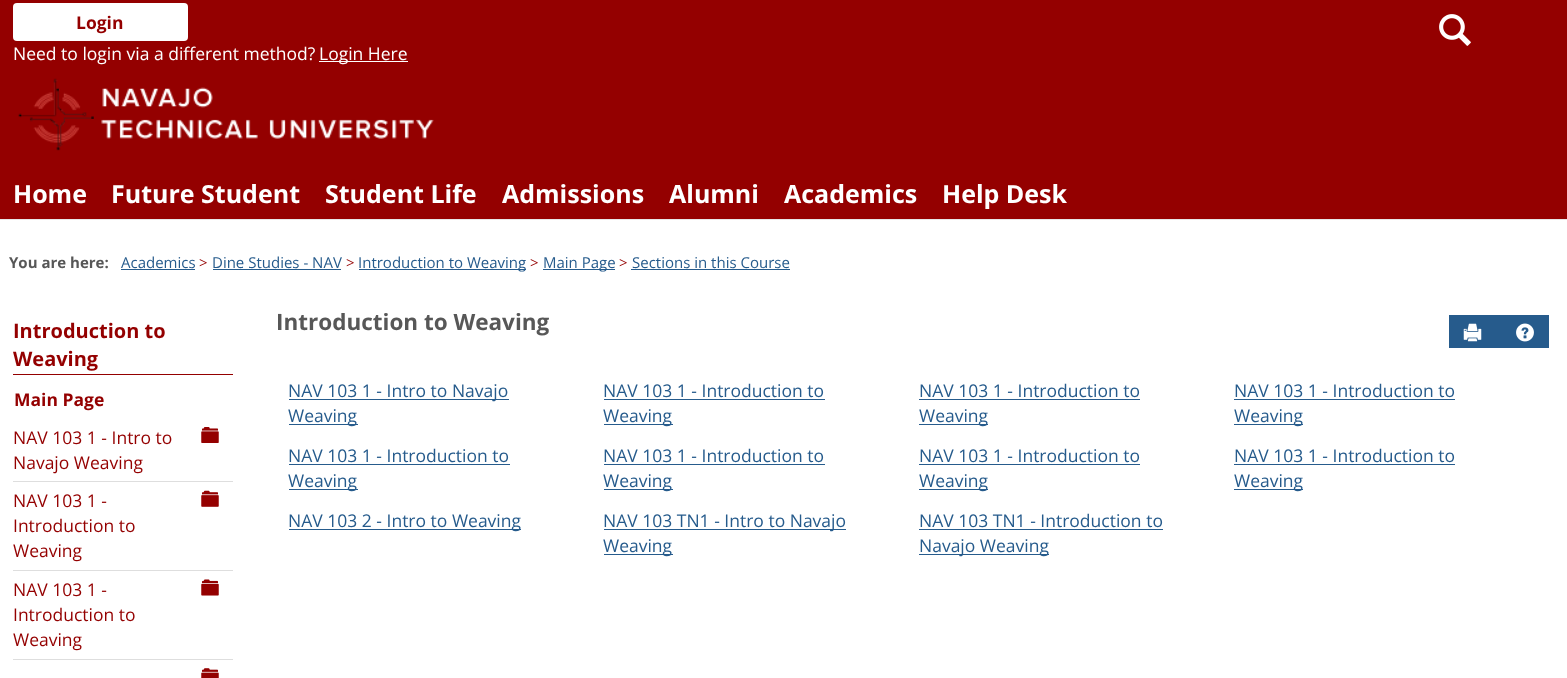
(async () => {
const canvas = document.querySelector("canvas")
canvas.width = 1567
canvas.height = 678
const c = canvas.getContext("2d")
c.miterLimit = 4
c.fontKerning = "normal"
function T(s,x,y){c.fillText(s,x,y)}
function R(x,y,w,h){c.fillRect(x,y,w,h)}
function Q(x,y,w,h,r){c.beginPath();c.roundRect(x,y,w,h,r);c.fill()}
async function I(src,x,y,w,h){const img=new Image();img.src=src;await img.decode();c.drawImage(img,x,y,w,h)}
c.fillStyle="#fff"
R(0,0,1567,678)
c.fillStyle="#940000"
R(0,0,1567,219)
c.fillStyle="#fff"
Q(13,3,175,38,4)
c.font="bold 17.5px Open Sans"
c.fillStyle="#940000"
T("Login",76,29)
c.font="17.5px Open Sans"
c.fillStyle="#fff"
T("Need to login via a different method?",13,60)
R(319,61,89,1)
T("Login Here",319,60)
await I("1.png",1439,14,32,32)
await I("2.png",18,78,416,73)
c.fillStyle="#e7e7e7"
R(0,219,1567,1)
c.font="bold 25px Open Sans"
c.fillStyle="#fff"
T("Home",13,203)
T("Future Student",111,203)
T("Student Life",325,203)
T("Admissions",502,203)
T("Alumni",669,203)
T("Academics",784,203)
T("Help Desk",942,203)
c.font="bold 15px Open Sans"
c.fillStyle="#575757"
T("You are here:",9,268)
c.font="15px Open Sans"
c.fillStyle="#265b8c"
T("Academics",121,268)
R(121,269,74,1)
c.fillStyle="#940000"
T(">",199,268)
c.fillStyle="#265b8c"
T("Dine Studies - NAV",212,268)
R(213,269,128,1)
c.fillStyle="#940000"
T(">",346,268)
c.fillStyle="#265b8c"
R(359,269,167,1)
T("Introduction to Weaving",358,268)
c.fillStyle="#940000"
T(">",530,268)
c.fillStyle="#265b8c"
R(543,269,72,1)
T("Main Page",543,268)
c.fillStyle="#940000"
T(">",619,268)
c.fillStyle="#265b8c"
T("Sections in this Course",632,268)
R(631,269,159,1)
c.fillStyle="#940000"
R(13,374,220,1)
c.font="bold 20px Open Sans"
T("Introduction to",13,338)
T("Weaving",13,366)
c.font="bold 17.5px Open Sans"
T("Main Page",14,406)
c.fillStyle="#dedede"
R(13,481,220,1)
c.font="17.5px Open Sans"
c.fillStyle="#940000"
T("NAV 103 1 - Intro to",13,444)
await I("3.png",201,427,18,16)
T("Navajo Weaving",13,469)
c.fillStyle="#dedede"
R(13,570,220,1)
c.fillStyle="#940000"
T("NAV 103 1 -",13,507)
await I("4.png",201,490,18,17)
T("Introduction to",13,532)
T("Weaving",13,557)
c.fillStyle="#dedede"
R(13,659,220,1)
c.fillStyle="#940000"
T("NAV 103 1 -",13,596)
await I("5.png",201,579,18,17)
T("Introduction to",13,621)
T("Weaving",13,646)
await I("6.png",201,668,18,10)
c.font="bold 22.5px Open Sans"
c.fillStyle="#575757"
T("Introduction to Weaving",276,330)
c.fillStyle="#265b8c"
R(1449,315,100,33)
await I("7.png",1463,323,19,19)
await I("8.png",1516,323,18,19)
R(289,399,220,1)
c.font="17.5px Open Sans"
T("NAV 103 1 - Intro to Navajo",288,397)
R(289,424,69,1)
T("Weaving",288,422)
T("NAV 103 1 - Introduction to",603,397)
R(604,399,221,1)
R(604,424,69,1)
T("Weaving",603,422)
T("NAV 103 1 - Introduction to",919,397)
R(919,399,221,1)
R(919,424,69,1)
T("Weaving",919,422)
T("NAV 103 1 - Introduction to",1234,397)
R(1234,399,221,1)
R(1234,424,69,1)
T("Weaving",1234,422)
T("NAV 103 1 - Introduction to",288,462)
R(289,464,221,1)
R(289,489,69,1)
T("Weaving",288,487)
T("NAV 103 1 - Introduction to",603,462)
R(604,464,221,1)
R(604,489,69,1)
T("Weaving",603,487)
T("NAV 103 1 - Introduction to",919,462)
R(919,464,221,1)
R(919,489,69,1)
T("Weaving",919,487)
T("NAV 103 1 - Introduction to",1234,462)
R(1234,464,221,1)
R(1234,489,69,1)
T("Weaving",1234,487)
R(289,529,232,1)
T("NAV 103 2 - Intro to Weaving",288,527)
R(604,529,242,1)
T("NAV 103 TN1 - Intro to Navajo",603,527)
R(604,554,69,1)
T("Weaving",603,552)
T("NAV 103 TN1 - Introduction to",919,527)
R(919,529,244,1)
R(919,554,130,1)
T("Navajo Weaving",919,552)
})()
